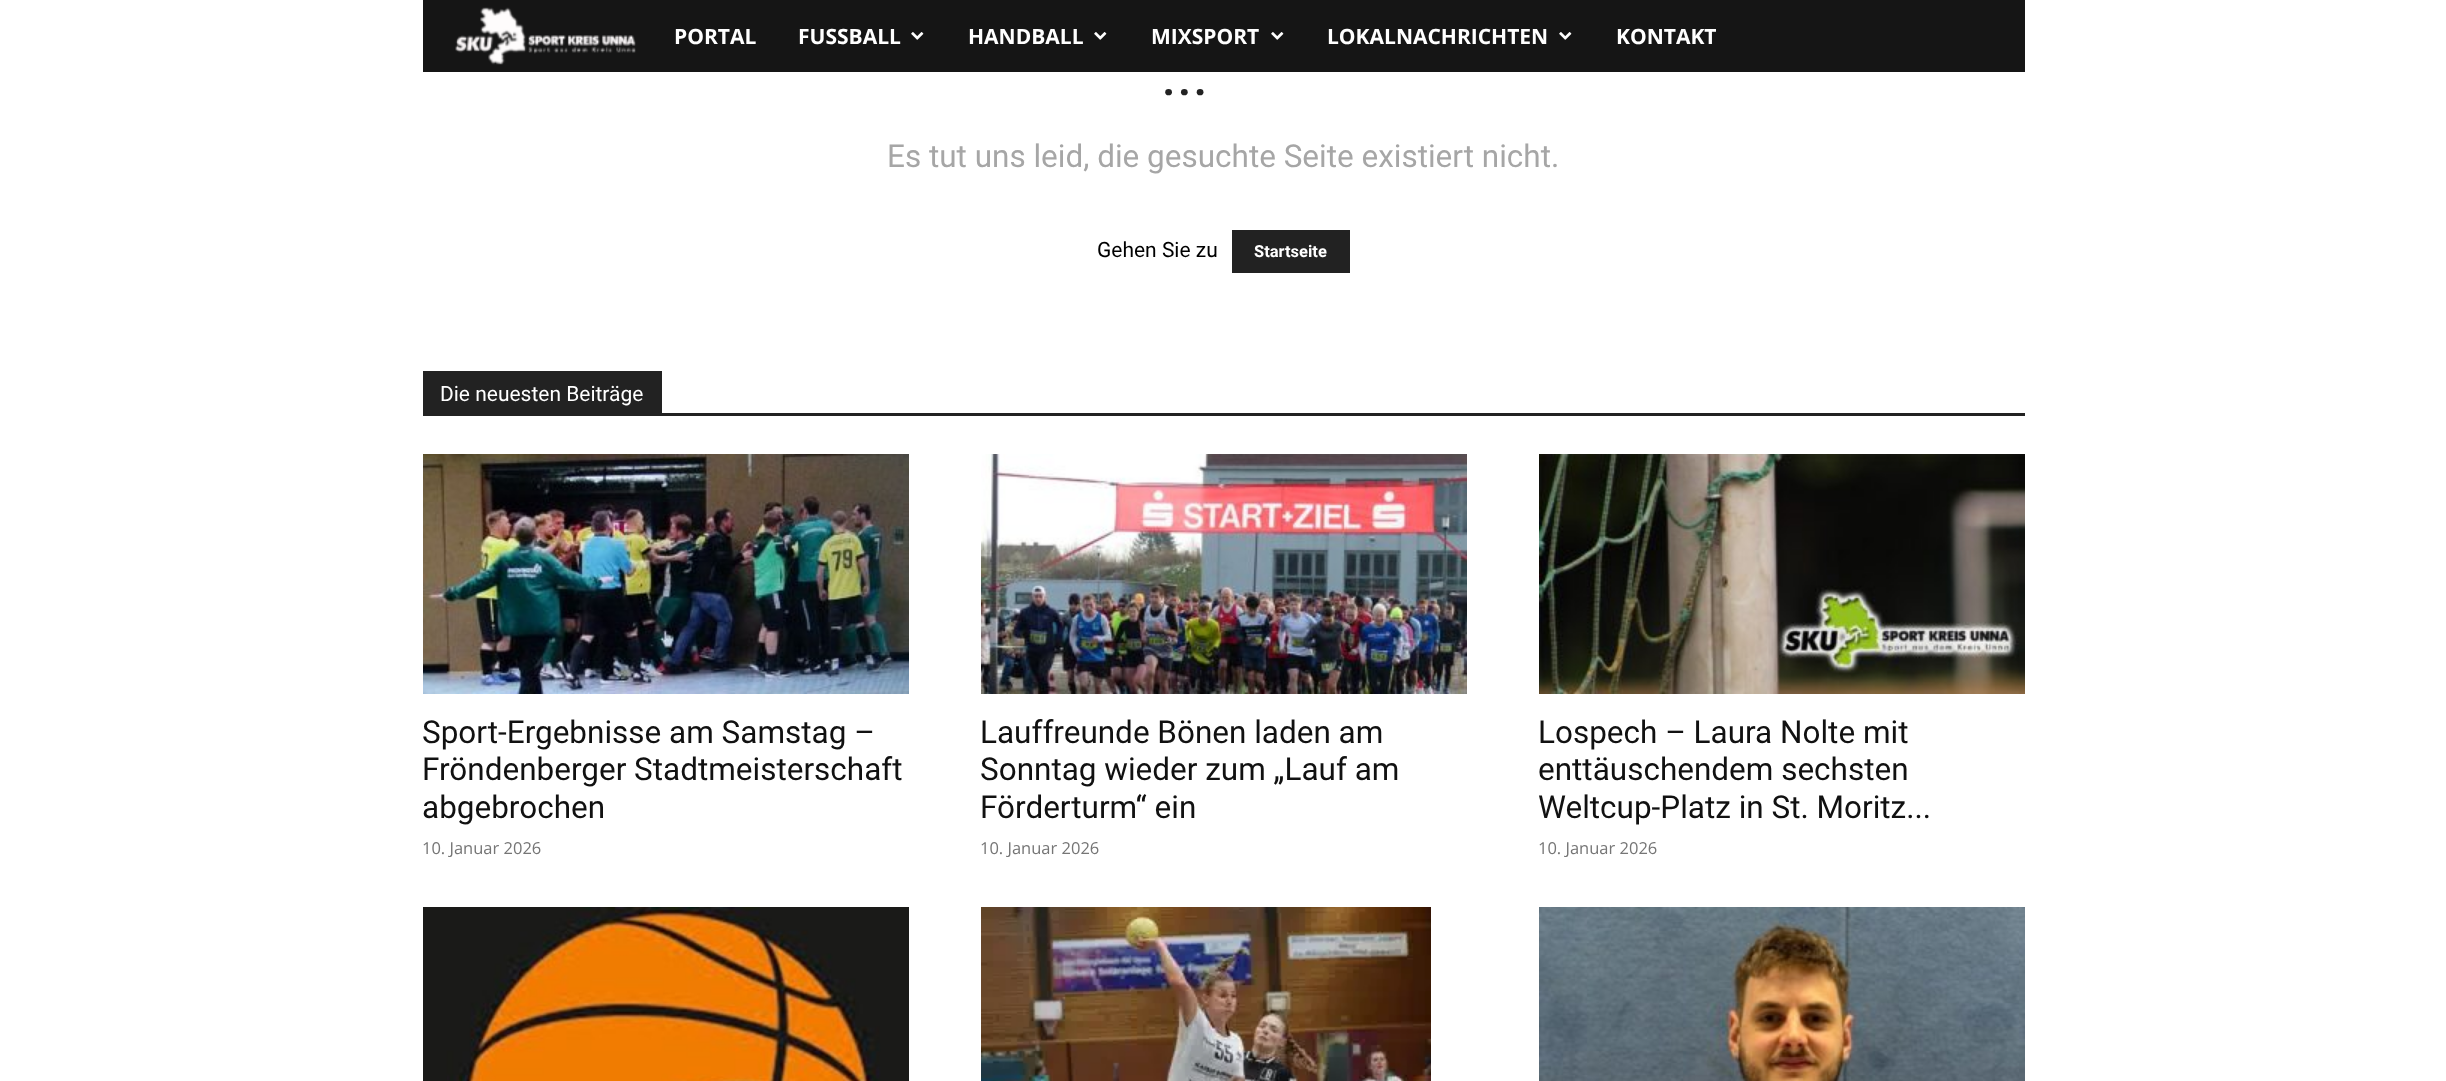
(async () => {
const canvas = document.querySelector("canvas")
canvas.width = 2446
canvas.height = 1081
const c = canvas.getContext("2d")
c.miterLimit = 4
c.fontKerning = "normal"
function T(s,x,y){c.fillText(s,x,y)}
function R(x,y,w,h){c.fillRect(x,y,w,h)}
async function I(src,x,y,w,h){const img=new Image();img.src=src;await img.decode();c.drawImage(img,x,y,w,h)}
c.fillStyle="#fff"
R(0,0,2446,1081)
c.fillStyle="#151515"
R(423,0,1602,72)
await I("1.png",455,7,181,58)
c.font="bold 21px Open Sans"
c.fillStyle="#fff"
T("PORTAL",674,44)
T("FUSSBALL",798,44)
await I("2.png",911,32,13,8)
T("HANDBALL",968,44)
await I("2.png",1094,32,13,8)
T("MIXSPORT",1151,44)
await I("2.png",1271,32,13,8)
T("LOKALNACHRICHTEN",1327,44)
await I("2.png",1559,32,13,8)
T("KONTAKT",1616,44)
c.font="60px Roboto"
c.fillStyle="#222"
T("...",1161,95)
c.font="31.5px Roboto"
c.fillStyle="#a6a6a6"
T("Es tut uns leid, die gesuchte Seite existiert nicht.",887,167)
c.font="21px Roboto"
c.fillStyle="#000"
T("Gehen Sie zu",1097,257)
c.fillStyle="#222"
R(1232,230,118,43)
c.font="bold 16.5px Roboto"
c.fillStyle="#fff"
T("Startseite",1254,257)
c.fillStyle="#222"
R(423,413,1602,3)
R(423,371,239,42)
c.font="21px Roboto"
c.fillStyle="#fff"
T("Die neuesten Beiträge",440,401)
await I("3.png",423,454,486,240)
c.font="31.5px Roboto"
c.fillStyle="#111"
T("Sport-Ergebnisse am Samstag –",422,743)
T("Fröndenberger Stadtmeisterschaft",422,780)
T("abgebrochen",422,818)
c.font="16.5px Open Sans"
c.fillStyle="#767676"
T("10. Januar 2026",422,854)
await I("4.png",981,454,486,240)
c.font="31.5px Roboto"
c.fillStyle="#111"
T("Lauffreunde Bönen laden am",980,743)
T("Sonntag wieder zum „Lauf am",980,780)
T("Förderturm“ ein",980,818)
c.font="16.5px Open Sans"
c.fillStyle="#767676"
T("10. Januar 2026",980,854)
await I("5.png",1539,454,486,240)
c.font="31.5px Roboto"
c.fillStyle="#111"
T("Lospech – Laura Nolte mit",1538,743)
T("enttäuschendem sechsten",1538,780)
T("Weltcup-Platz in St. Moritz...",1538,818)
c.font="16.5px Open Sans"
c.fillStyle="#767676"
T("10. Januar 2026",1538,854)
await I("6.png",423,907,486,174)
await I("7.png",981,907,450,174)
await I("8.png",1539,907,486,174)
})()
